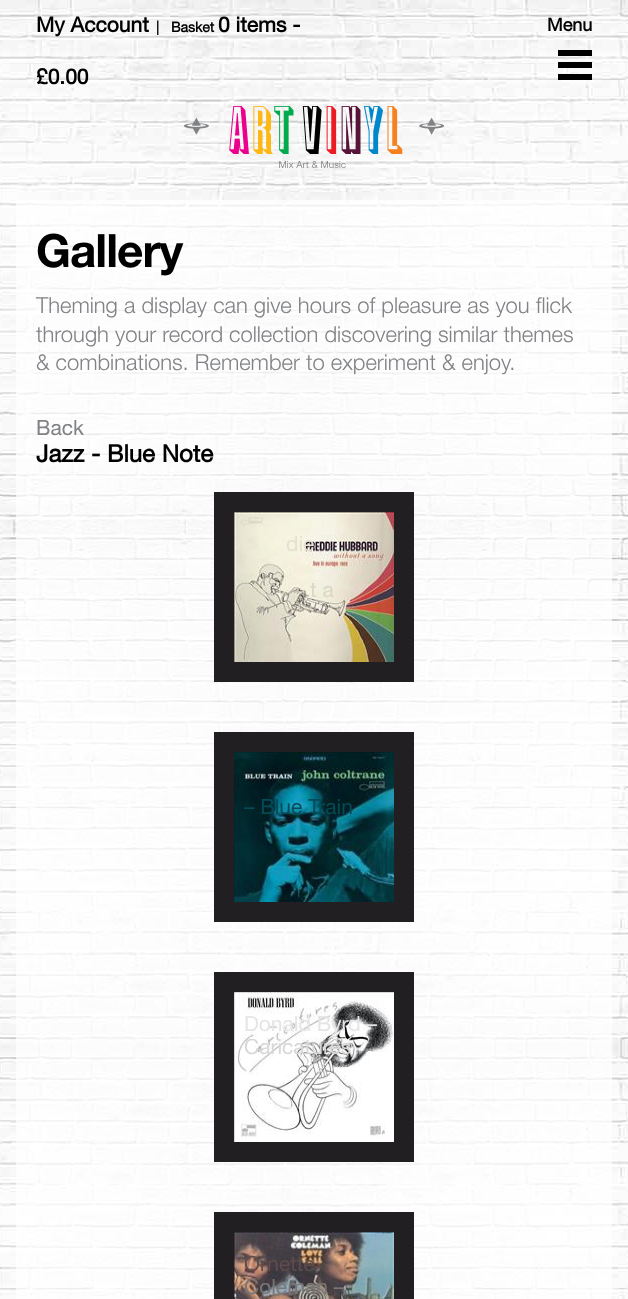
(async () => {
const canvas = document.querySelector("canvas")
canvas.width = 628
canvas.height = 1299
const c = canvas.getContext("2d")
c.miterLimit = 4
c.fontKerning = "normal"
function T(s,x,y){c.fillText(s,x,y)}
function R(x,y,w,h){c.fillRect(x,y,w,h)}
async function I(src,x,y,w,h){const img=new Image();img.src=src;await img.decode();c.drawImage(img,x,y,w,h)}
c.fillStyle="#fff"
R(0,0,628,1299)
await I("1.png",0,0,628,1299)
c.font="bold 21px 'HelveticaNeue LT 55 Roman'"
c.fillStyle="#000"
T("My Account",36,32)
c.font="bold 14px 'HelveticaNeue LT 55 Roman'"
T("|",156,32)
T("Basket",171,32)
c.font="bold 21px 'HelveticaNeue LT 55 Roman'"
T("0 items -",218,32)
T("£0.00",36,84)
c.font="bold 18px 'HelveticaNeue LT 55 Roman'"
T("Menu",547,31)
R(558,62,34,6)
R(558,50,34,6)
R(558,74,34,6)
await I("2.png",184,106,260,62)
c.fillStyle="#ffffffb3"
R(16,200,596,1099)
c.letterSpacing="-1px"
c.font="bold 46px 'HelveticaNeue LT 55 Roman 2'"
c.fillStyle="#000"
T("Gallery",36,267)
c.letterSpacing="0px"
c.font="300 22px 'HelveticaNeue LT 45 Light'"
c.fillStyle="#808285"
T("Theming a display can give hours of pleasure as you flick",36,313)
T("through your record collection discovering similar themes",36,342)
T("& combinations. Remember to experiment & enjoy.",36,370)
c.font="21px 'HelveticaNeue LT 55 Roman'"
T("Back",36,435)
c.font="bold 24px 'HelveticaNeue LT 55 Roman'"
c.fillStyle="#000"
T("Jazz - Blue Note",36,462)
c.strokeStyle="#211f21"
c.lineWidth=20
c.strokeRect(224,502,180,170)
await I("3.png",234,512,160,150)
c.font="21px 'HelveticaNeue LT 55 Roman'"
c.fillStyle="#e4e1d0"
T("die",286,551)
c.fillStyle="#dad7c6"
T("t a",310,597)
c.strokeRect(224,742,180,170)
await I("4.png",234,752,160,150)
c.fillStyle="#064957"
T("– Blue Train",244,814)
c.strokeRect(224,982,180,170)
await I("5.png",234,992,160,150)
c.fillStyle="#e5e5e5"
T("Donald Byrd –",244,1031)
c.fillStyle="#d8d8d8"
T("Caricatures",244,1054)
c.strokeRect(224,1222,180,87)
await I("6.png",234,1232,160,67)
c.fillStyle="#5f4c4b"
T("Ornette",244,1271)
c.fillStyle="#7a7675"
T("Coleman –",244,1294)
})()
